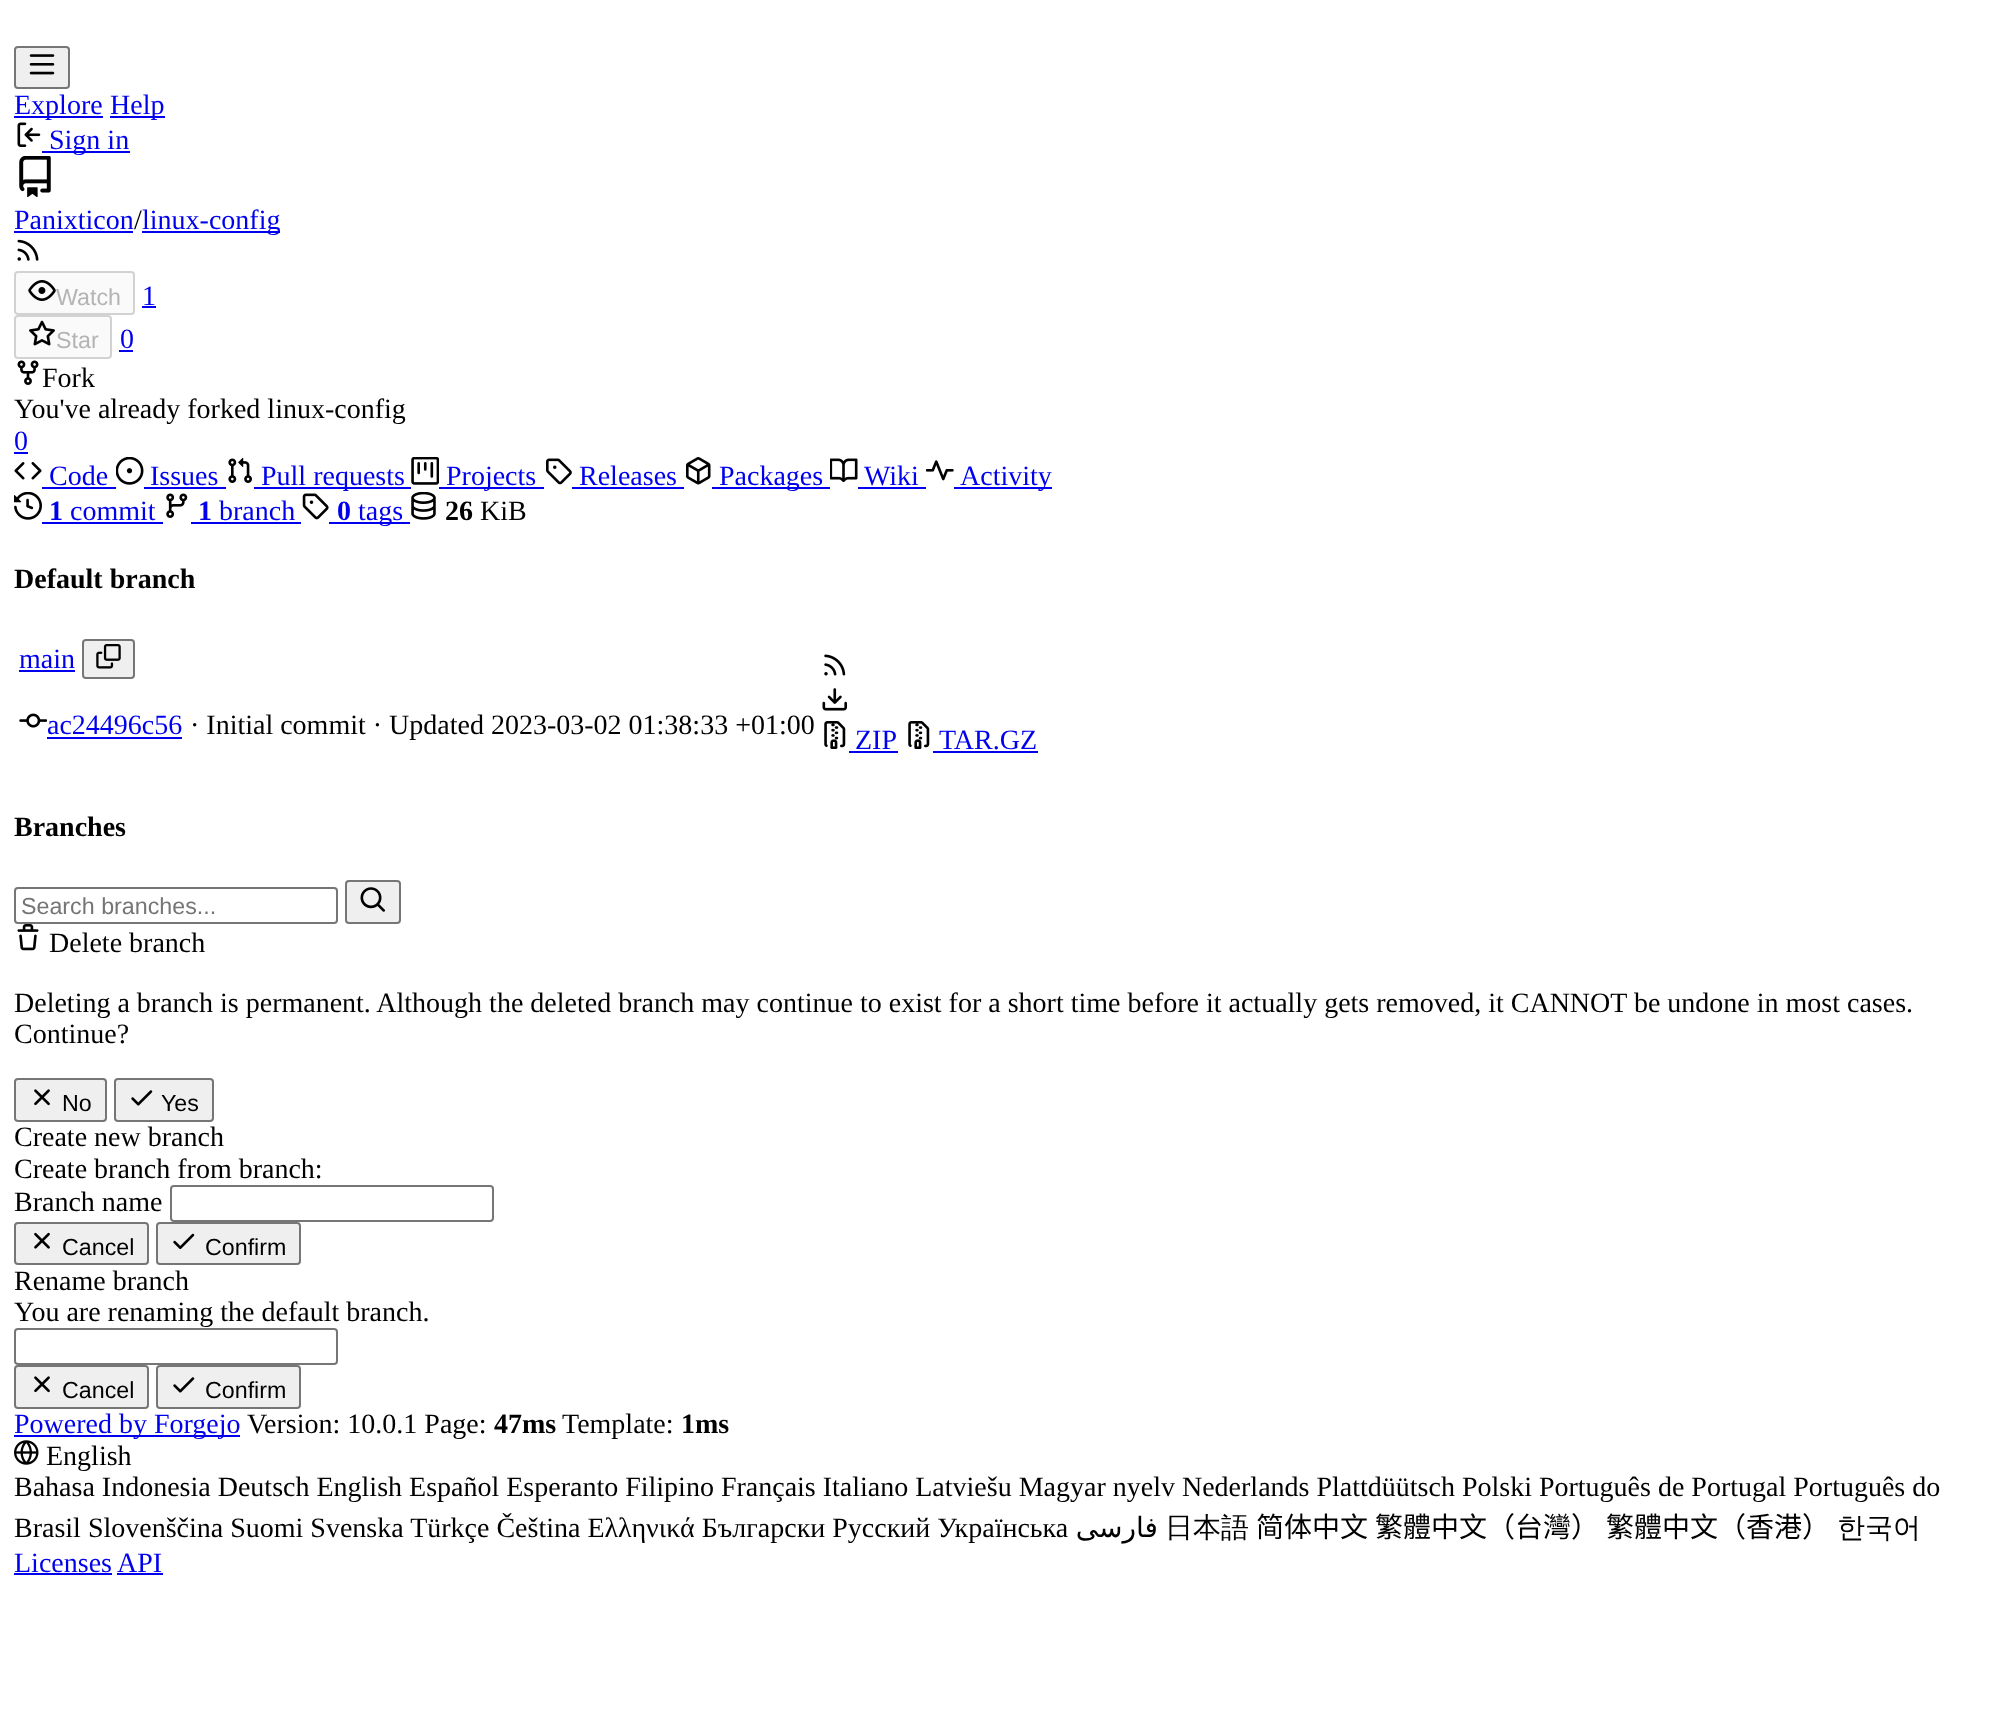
(async () => {
const canvas = document.querySelector("canvas")
canvas.width = 1990
canvas.height = 1733
const c = canvas.getContext("2d")
c.miterLimit = 4
c.fontKerning = "normal"
function T(s,x,y){c.fillText(s,x,y)}
function R(x,y,w,h){c.fillRect(x,y,w,h)}
async function I(src,x,y,w,h){const img=new Image();img.src=src;await img.decode();c.drawImage(img,x,y,w,h)}
c.fillStyle="#fff"
R(0,0,1990,1733)
c.fillStyle="#efefef"
c.beginPath()
c.roundRect(15,47,54,41,3)
c.fill()
c.strokeStyle="#767676"
c.lineWidth=2
c.stroke()
await I("1.png",29,54,26,21)
c.fillStyle="#00e"
R(14,116,89,2)
c.font="28px Liberation Serif"
T("Explore",14,114)
R(110,116,55,2)
T("Help",110,114)
await I("2.png",17,122,24,25)
R(42,151,88,2)
T("Sign in",49,149)
await I("3.png",19,156,32,42)
T("Panixticon",14,229)
R(14,231,119,2)
c.fillStyle="#000"
T("/",134,229)
c.fillStyle="#00e"
R(142,231,138,2)
T("linux-config",142,229)
await I("4.png",17,239,22,22)
c.fillStyle="#fafafa"
c.beginPath()
c.roundRect(15,272,119,42,3)
c.fill()
c.strokeStyle="#d2d2d2"
c.stroke()
await I("5.png",28,280,28,21)
c.font="23.25px Liberation Sans"
c.fillStyle="#b4b4b4"
T("Watch",56,305)
c.font="28px Liberation Serif"
c.fillStyle="#00e"
T("1",142,305)
R(142,306,14,2)
c.fillStyle="#fafafa"
c.beginPath()
c.roundRect(15,316,96,42,3)
c.fill()
c.stroke()
await I("6.png",29,320,26,26)
c.font="23.25px Liberation Sans"
c.fillStyle="#b4b4b4"
T("Star",56,348)
c.font="28px Liberation Serif"
c.fillStyle="#00e"
T("0",120,348)
R(119,350,14,2)
await I("7.png",17,360,22,25)
c.fillStyle="#000"
T("Fork",42,387)
T("You've already forked linux-config",14,418)
c.fillStyle="#00e"
T("0",14,450)
R(14,452,14,2)
await I("8.png",14,462,28,18)
T("Code",49,485)
R(42,487,74,2)
await I("9.png",116,457,28,28)
T("Issues",150,485)
R(144,487,82,2)
await I("10.png",228,457,24,26)
R(254,487,157,2)
T("Pull requests",261,485)
await I("11.png",411,457,28,28)
R(439,487,105,2)
T("Projects",446,485)
await I("12.png",546,458,26,27)
T("Releases",579,485)
R(572,487,112,2)
await I("13.png",686,457,25,28)
R(712,487,118,2)
T("Packages",719,485)
await I("14.png",830,458,28,25)
T("Wiki",864,485)
R(858,487,68,2)
await I("15.png",926,460,28,21)
R(954,487,98,2)
T("Activity",960,485)
await I("16.png",14,492,28,28)
c.font="bold 28px Liberation Serif"
T("1",49,520)
c.font="28px Liberation Serif"
T("commit",70,520)
R(42,522,121,2)
await I("17.png",166,493,22,25)
c.font="bold 28px Liberation Serif"
T("1",198,520)
R(191,522,110,2)
c.font="28px Liberation Serif"
T("branch",219,520)
await I("18.png",302,493,27,27)
c.font="bold 28px Liberation Serif"
T("0",337,520)
R(329,522,81,2)
c.font="28px Liberation Serif"
T("tags",358,520)
await I("19.png",411,492,25,28)
c.font="bold 28px Liberation Serif"
c.fillStyle="#000"
T("26",445,520)
c.font="28px Liberation Serif"
T("KiB",480,520)
c.font="bold 28px Liberation Serif"
T("Default branch",14,588)
c.font="28px Liberation Serif"
c.fillStyle="#00e"
T("main",19,668)
R(19,670,56,2)
c.fillStyle="#efefef"
c.beginPath()
c.roundRect(83,640,51,38,3)
c.fill()
c.strokeStyle="#767676"
c.stroke()
await I("20.png",96,644,25,25)
await I("21.png",19,713,28,15)
c.fillStyle="#00e"
T("ac24496c56",47,734)
R(47,737,135,2)
c.fillStyle="#000"
T("· Initial commit · Updated 2023-03-02 01:38:33 +01:00",190,734)
await I("22.png",824,654,22,22)
await I("23.png",822,688,25,23)
await I("24.png",824,721,22,28)
c.fillStyle="#00e"
T("ZIP",855,749)
R(849,751,49,2)
await I("24.png",908,721,22,28)
T("TAR.GZ",939,749)
R(933,751,105,2)
c.font="bold 28px Liberation Serif"
c.fillStyle="#000"
T("Branches",14,836)
c.beginPath()
c.roundRect(15,888,322,35,3)
c.stroke()
c.font="23.25px Liberation Sans"
c.fillStyle="#757575"
T("Search branches...",21,914)
c.fillStyle="#efefef"
c.beginPath()
c.roundRect(346,881,54,42,3)
c.fill()
c.stroke()
await I("25.png",360,887,25,25)
await I("26.png",17,924,22,27)
c.font="28px Liberation Serif"
c.fillStyle="#000"
T("Delete branch",49,952)
T("Deleting a branch is permanent. Although the deleted branch may continue to exist for a short time before it actually gets removed, it CANNOT be undone in most cases.",14,1012)
T("Continue?",14,1043)
c.fillStyle="#efefef"
c.beginPath()
c.roundRect(15,1079,91,42,3)
c.fill()
c.stroke()
await I("27.png",34,1089,16,17)
c.font="23.25px Liberation Sans"
c.fillStyle="#000"
T("No",62,1111)
c.fillStyle="#efefef"
c.beginPath()
c.roundRect(115,1079,98,42,3)
c.fill()
c.stroke()
await I("28.png",131,1090,22,16)
c.fillStyle="#000"
T("Yes",161,1111)
c.font="28px Liberation Serif"
T("Create new branch",14,1146)
T("Create branch from branch:",14,1178)
T("Branch name",14,1211)
c.beginPath()
c.roundRect(171,1186,322,35,3)
c.stroke()
c.fillStyle="#efefef"
c.beginPath()
c.roundRect(15,1223,133,41,3)
c.fill()
c.stroke()
await I("29.png",34,1232,16,17)
c.font="23.25px Liberation Sans"
c.fillStyle="#000"
T("Cancel",62,1255)
c.fillStyle="#efefef"
c.beginPath()
c.roundRect(157,1223,143,41,3)
c.fill()
c.stroke()
await I("30.png",173,1233,22,16)
c.fillStyle="#000"
T("Confirm",205,1255)
c.font="28px Liberation Serif"
T("Rename branch",14,1290)
T("You are renaming the default branch.",14,1321)
c.beginPath()
c.roundRect(15,1329,322,35,3)
c.stroke()
c.fillStyle="#efefef"
c.beginPath()
c.roundRect(15,1366,133,42,3)
c.fill()
c.stroke()
await I("27.png",34,1376,16,17)
c.font="23.25px Liberation Sans"
c.fillStyle="#000"
T("Cancel",62,1398)
c.fillStyle="#efefef"
c.beginPath()
c.roundRect(157,1366,143,42,3)
c.fill()
c.stroke()
await I("28.png",173,1377,22,16)
c.fillStyle="#000"
T("Confirm",205,1398)
c.fillStyle="#00e"
R(14,1435,226,2)
c.font="28px Liberation Serif"
T("Powered by Forgejo",14,1433)
c.fillStyle="#000"
T("Version: 10.0.1 Page:",247,1433)
c.font="bold 28px Liberation Serif"
T("47ms",494,1433)
c.font="28px Liberation Serif"
T("Template:",562,1433)
c.font="bold 28px Liberation Serif"
T("1ms",681,1433)
await I("31.png",14,1440,25,25)
c.font="28px Liberation Serif"
T("English",46,1465)
T("Bahasa Indonesia Deutsch English Español Esperanto Filipino Français Italiano Latviešu Magyar nyelv Nederlands Plattdüütsch Polski Português de Portugal Português do",14,1496)
T("Brasil Slovenščina Suomi Svenska Türkçe Čeština Ελληνικά Български Русский Українська",14,1537)
c.direction="rtl"
c.font="28px DejaVu Sans"
T("فارسی",1158,1537)
c.direction="ltr"
c.font="500 28px WenQuanYi Zen Hei"
T("日本語",1165,1537)
c.font="28px Noto Sans CJK SC"
T("简体中文",1256,1537)
c.font="28px Noto Sans CJK TC"
T("繁體中文（台灣）",1375,1537)
T("繁體中文（香港）",1606,1537)
c.font="500 28px WenQuanYi Zen Hei"
T("한국어",1837,1537)
c.font="28px Liberation Serif"
c.fillStyle="#00e"
T("Licenses",14,1572)
R(14,1573,98,2)
T("API",117,1572)
R(117,1573,46,2)
})()
